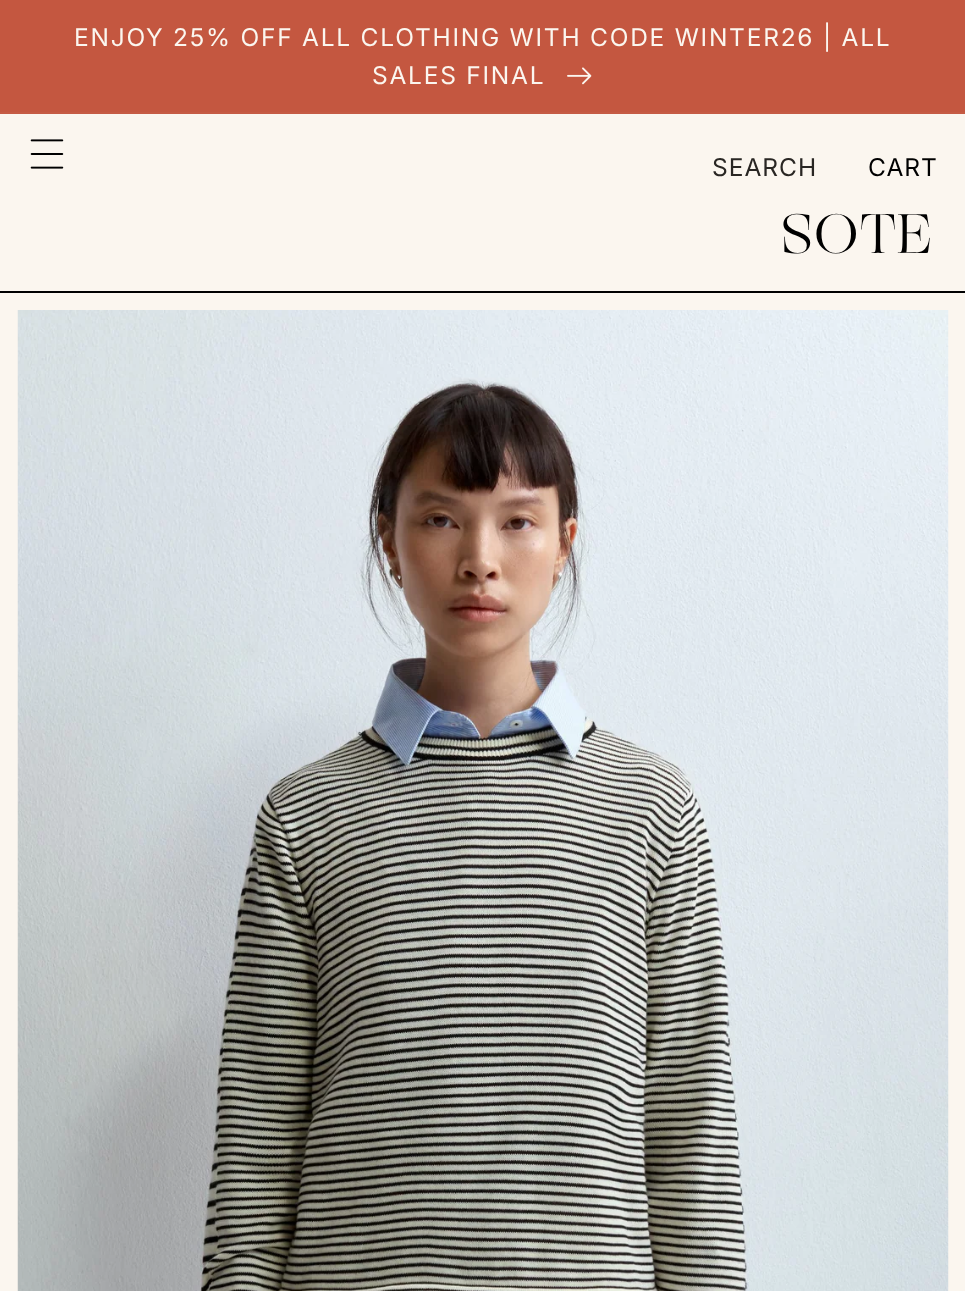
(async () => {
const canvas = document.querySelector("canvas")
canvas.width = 965
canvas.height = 1291
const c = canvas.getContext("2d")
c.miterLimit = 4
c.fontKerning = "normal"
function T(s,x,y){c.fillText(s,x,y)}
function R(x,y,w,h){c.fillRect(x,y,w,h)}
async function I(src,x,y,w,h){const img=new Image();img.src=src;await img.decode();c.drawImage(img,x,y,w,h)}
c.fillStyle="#fbf6ef"
R(0,0,965,1291)
c.fillStyle="#c55b44"
R(0,112,965,2)
c.fillStyle="#c45740"
R(0,0,965,112)
c.letterSpacing="1.75px"
c.font="24.5px Inter"
c.fillStyle="#fbf6ef"
T("ENJOY 25% OFF ALL CLOTHING WITH CODE WINTER26 | ALL",74,46)
T("SALES FINAL",372,84)
await I("1.png",567,67,25,18)
c.fillStyle="#000"
R(0,291,965,2)
await I("2.png",30,139,34,30)
c.letterSpacing="1px"
c.fillStyle="#292623"
T("SEARCH",712,176)
c.fillStyle="#000"
T("CART",868,176)
c.font="56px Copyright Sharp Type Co"
T("SOTE",781,253)
await I("3.png",17,310,932,981)
})()
